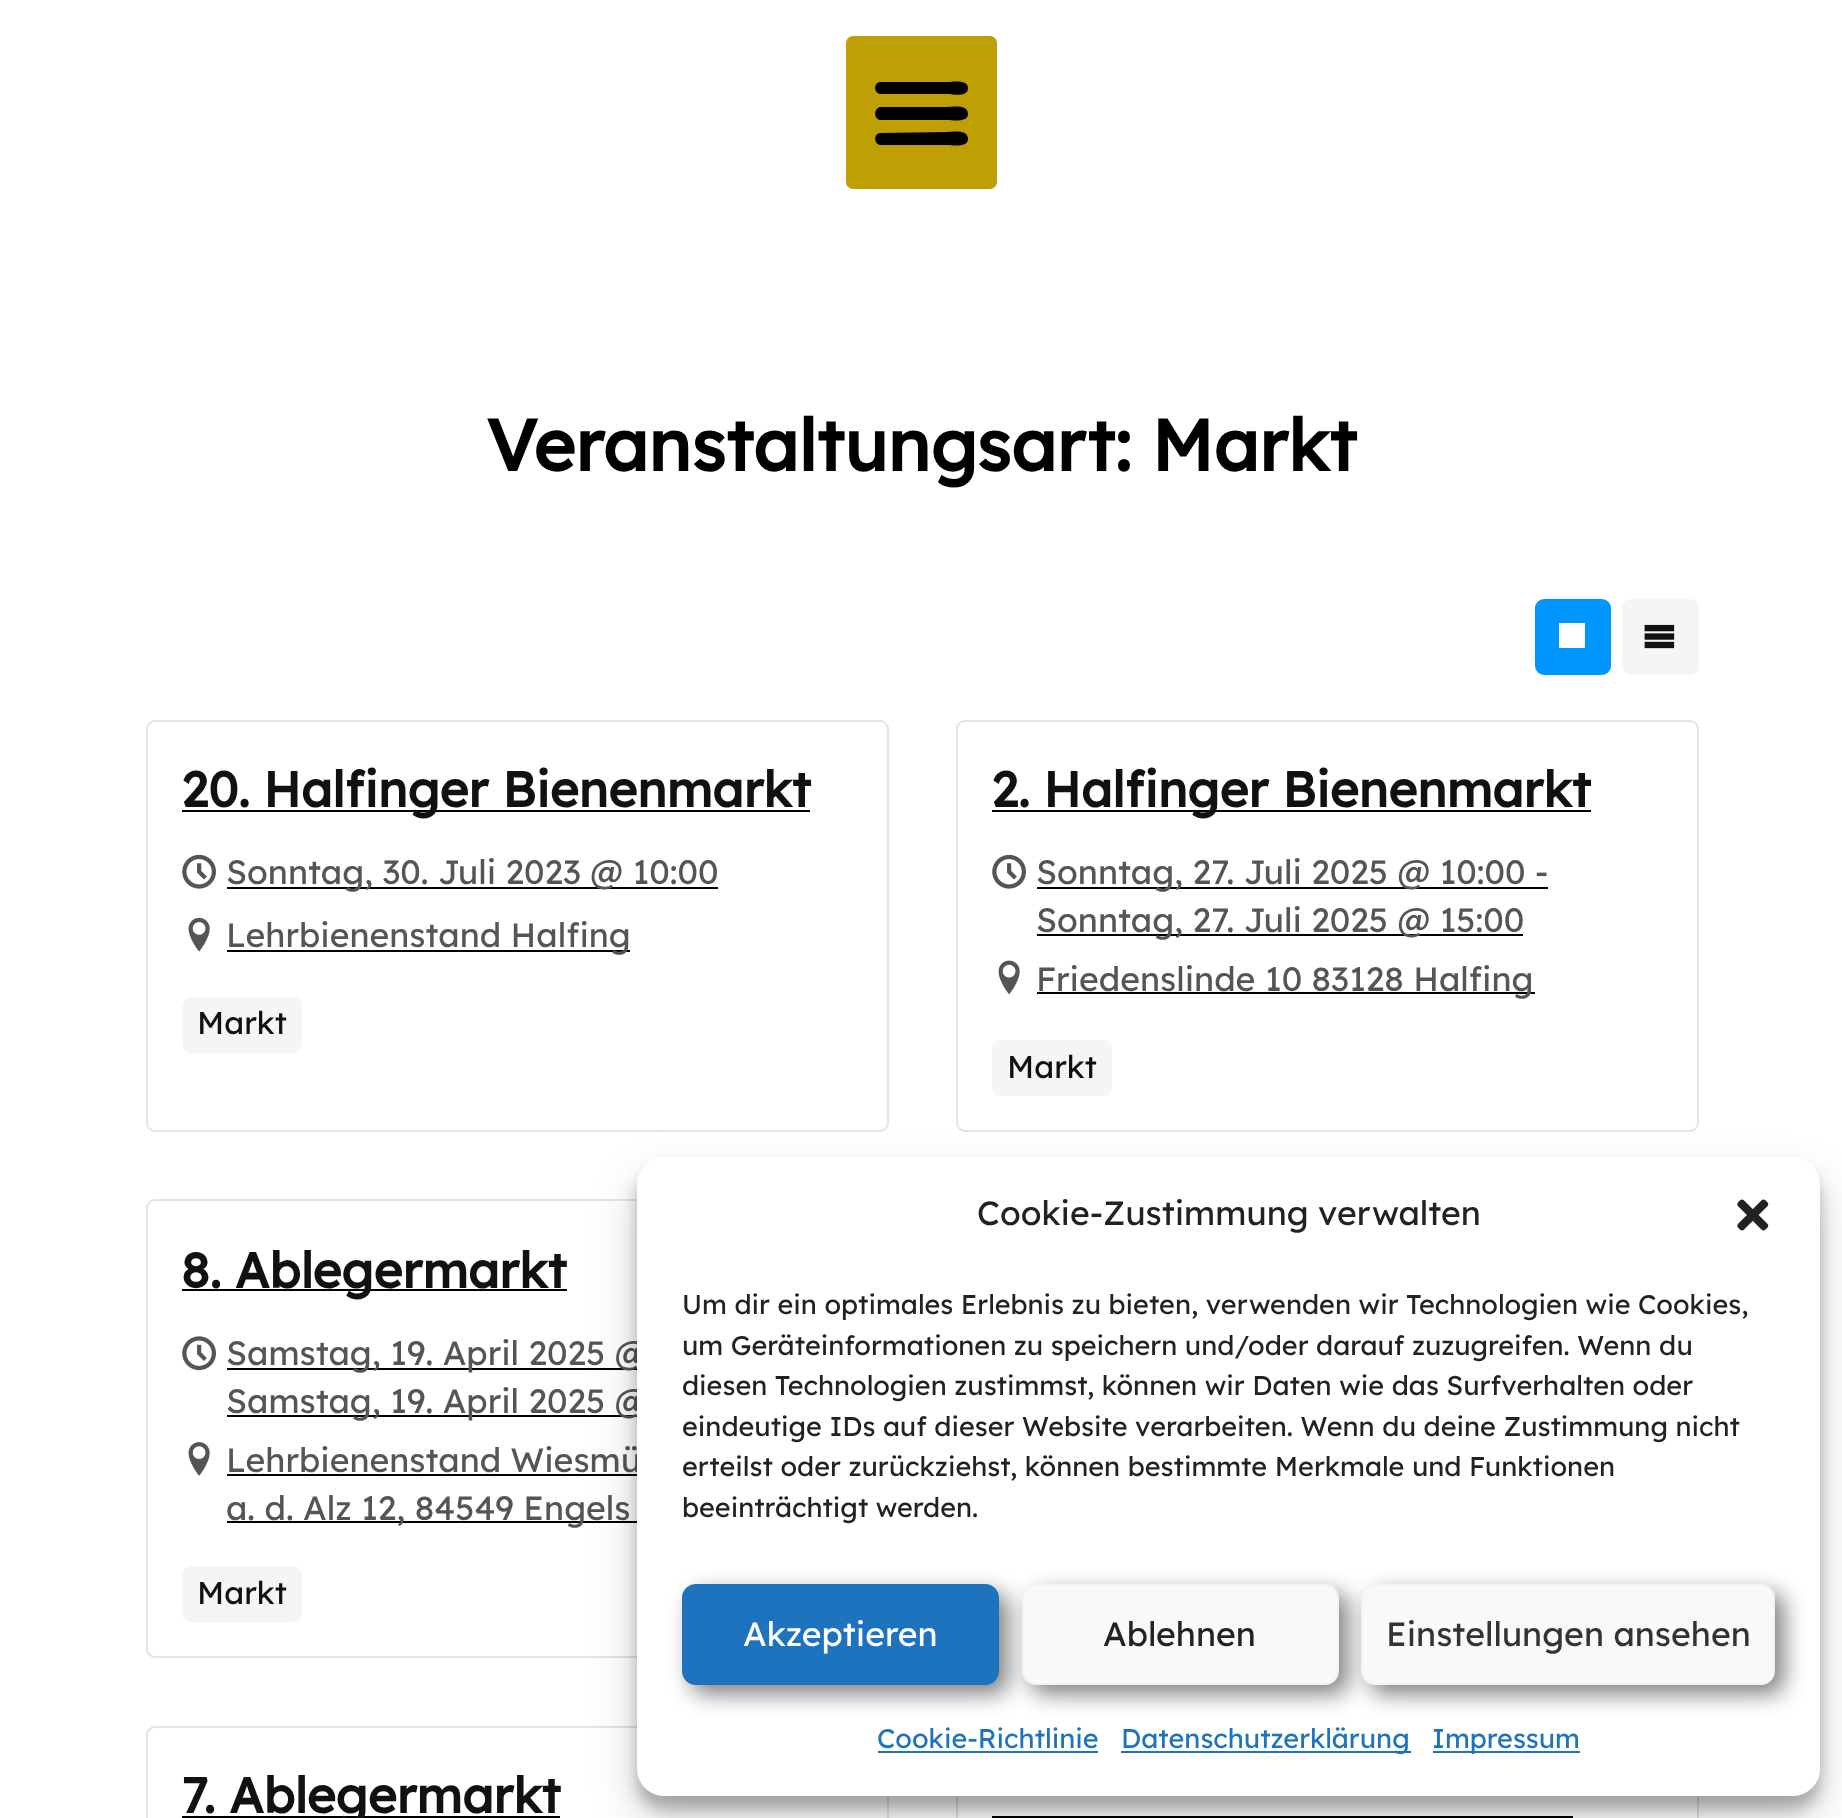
(async () => {
const canvas = document.querySelector("canvas")
canvas.width = 1842
canvas.height = 1818
const c = canvas.getContext("2d")
c.miterLimit = 4
c.fontKerning = "normal"
function T(s,x,y){c.fillText(s,x,y)}
function R(x,y,w,h){c.fillRect(x,y,w,h)}
function Q(x,y,w,h,r){c.beginPath();c.roundRect(x,y,w,h,r);c.fill()}
async function I(src,x,y,w,h){const img=new Image();img.src=src;await img.decode();c.drawImage(img,x,y,w,h)}
let path
c.fillStyle="#fff"
R(0,0,1842,1818)
c.fillStyle="#bfa004"
Q(846,36,151,153,7)
c.fillStyle="#000"
path = new Path2D("M881 94h67c4 0 20 4 20-6c0-9-16-6-20-6h-68c-7 1-6 12 1 12zm0 26h67c4 0 20 3 20-6c0-10-16-7-20-7h-68c-7 2-6 13 1 13zm0 25h67c4 0 20 3 20-6c0-10-16-7-20-7l-68 1c-7 1-6 12 1 12z")
c.fill(path)
c.font="bold 72px Lexend"
T("Veranstaltungsart: Markt",486,471)
c.fillStyle="#0096ff"
Q(1535,599,76,76,9)
c.fillStyle="#fff"
R(1559,623,26,25)
c.fillStyle="#f5f5f5"
Q(1622,599,77,76,9)
await I("1.png",1644,624,31,25)
c.beginPath()
c.roundRect(147,721,741,410,8)
c.strokeStyle="#e4e4e4"
c.lineWidth=2
c.stroke()
c.fillStyle="#000"
R(182,810,628,2)
c.font="bold 49.5px Lexend"
c.fillStyle="#111"
T("20. Halfinger Bienenmarkt",181,807)
await I("2.png",182,854,34,35)
c.fillStyle="#000"
R(227,887,491,2)
c.font="33.75px Lexend"
c.fillStyle="#555"
T("Sonntag, 30. Juli 2023 @ 10:00",226,884)
await I("3.png",188,917,22,35)
c.fillStyle="#000"
R(227,950,403,2)
c.fillStyle="#555"
T("Lehrbienenstand Halfing",226,947)
c.fillStyle="#f5f5f5"
Q(182,997,120,56,9)
c.font="31.5px Lexend"
c.fillStyle="#111"
T("Markt",197,1034)
c.beginPath()
c.roundRect(957,721,741,410,8)
c.stroke()
c.fillStyle="#000"
R(992,810,599,2)
c.font="bold 49.5px Lexend"
c.fillStyle="#111"
T("2. Halfinger Bienenmarkt",991,807)
await I("2.png",992,854,34,35)
c.fillStyle="#000"
R(1037,887,511,2)
c.font="33.75px Lexend"
c.fillStyle="#555"
T("Sonntag, 27. Juli 2025 @ 10:00 -",1036,884)
c.fillStyle="#000"
R(1037,934,486,2)
c.fillStyle="#555"
T("Sonntag, 27. Juli 2025 @ 15:00",1036,932)
await I("4.png",998,960,22,35)
c.fillStyle="#000"
R(1037,992,498,2)
c.fillStyle="#555"
T("Friedenslinde 10 83128 Halfing",1036,991)
c.fillStyle="#f5f5f5"
Q(992,1040,120,56,9)
c.font="31.5px Lexend"
c.fillStyle="#111"
T("Markt",1007,1078)
c.beginPath()
c.roundRect(147,1200,741,457,8)
c.stroke()
c.fillStyle="#000"
R(182,1289,385,2)
c.font="bold 49.5px Lexend"
c.fillStyle="#111"
T("8. Ablegermarkt",181,1288)
await I("5.png",182,1336,34,35)
c.fillStyle="#000"
R(227,1368,410,2)
c.font="33.75px Lexend"
c.fillStyle="#555"
T("Samstag, 19. April 2025 @",226,1365)
c.fillStyle="#000"
R(227,1415,410,2)
c.fillStyle="#555"
T("Samstag, 19. April 2025 @",226,1413)
await I("6.png",188,1442,22,34)
T("Lehrbienenstand Wiesmü",226,1472)
c.fillStyle="#000"
R(227,1474,410,2)
R(227,1521,410,2)
c.fillStyle="#555"
T("a. d. Alz 12, 84549 Engels",226,1520)
c.fillStyle="#f5f5f5"
Q(182,1566,120,56,9)
c.font="31.5px Lexend"
c.fillStyle="#111"
T("Markt",197,1604)
c.beginPath()
c.roundRect(147,1727,741,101,8)
c.stroke()
c.fillStyle="#000"
R(182,1816,378,2)
c.font="bold 49.5px Lexend"
c.fillStyle="#111"
T("7. Ablegermarkt",181,1813)
c.strokeRect(957,1727,741,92)
c.fillStyle="#000"
R(992,1816,581,2)
c.fillStyle="#0000003b"
c.filter="blur(7px)"
c.beginPath()
c.roundRect(637,1170,1183,639,27)
c.fill()
c.filter="none"
c.fillStyle="#00000030"
c.filter="blur(22.5px)"
c.beginPath()
c.roundRect(637,1179,1183,639,27)
c.fill()
c.filter="none"
c.fillStyle="#fff"
Q(637,1157,1183,639,27)
c.font="33.75px Lexend"
c.fillStyle="#222"
T("Cookie-Zustimmung verwalten",977,1225)
await I("7.png",1737,1199,32,32)
c.font="27px Lexend"
T("Um dir ein optimales Erlebnis zu bieten, verwenden wir Technologien wie Cookies,",682,1314)
T("um Geräteinformationen zu speichern und/oder darauf zuzugreifen. Wenn du",682,1355)
T("diesen Technologien zustimmst, können wir Daten wie das Surfverhalten oder",682,1395)
T("eindeutige IDs auf dieser Website verarbeiten. Wenn du deine Zustimmung nicht",682,1436)
T("erteilst oder zurückziehst, können bestimmte Merkmale und Funktionen",682,1476)
T("beeinträchtigt werden.",682,1517)
c.fillStyle="#00000080"
c.filter="blur(11px)"
c.beginPath()
c.roundRect(691,1593,317,101,14)
c.fill()
c.filter="none"
c.fillStyle="#1e73be"
c.beginPath()
c.roundRect(683,1585,315,99,13)
c.fill()
c.strokeStyle="#1e73be"
c.stroke()
c.font="33.75px Lexend"
c.fillStyle="#fff"
T("Akzeptieren",743,1646)
c.fillStyle="#00000080"
c.filter="blur(11px)"
c.beginPath()
c.roundRect(1031,1593,317,101,14)
c.fill()
c.filter="none"
c.fillStyle="#f9f9f9"
c.beginPath()
c.roundRect(1023,1585,315,99,13)
c.fill()
c.strokeStyle="#f2f2f2"
c.stroke()
c.fillStyle="#222"
T("Ablehnen",1103,1646)
c.fillStyle="#00000080"
c.filter="blur(11px)"
c.beginPath()
c.roundRect(1370,1593,414,101,14)
c.fill()
c.filter="none"
c.fillStyle="#f9f9f9"
c.beginPath()
c.roundRect(1362,1585,412,99,13)
c.fill()
c.stroke()
c.fillStyle="#333"
T("Einstellungen ansehen",1386,1646)
c.font="27px Lexend"
c.fillStyle="#1e73be"
T("Cookie-Richtlinie",877,1748)
R(878,1751,220,2)
R(1121,1751,290,2)
T("Datenschutzerklärung",1121,1748)
R(1433,1751,147,2)
T("Impressum",1432,1748)
})()
